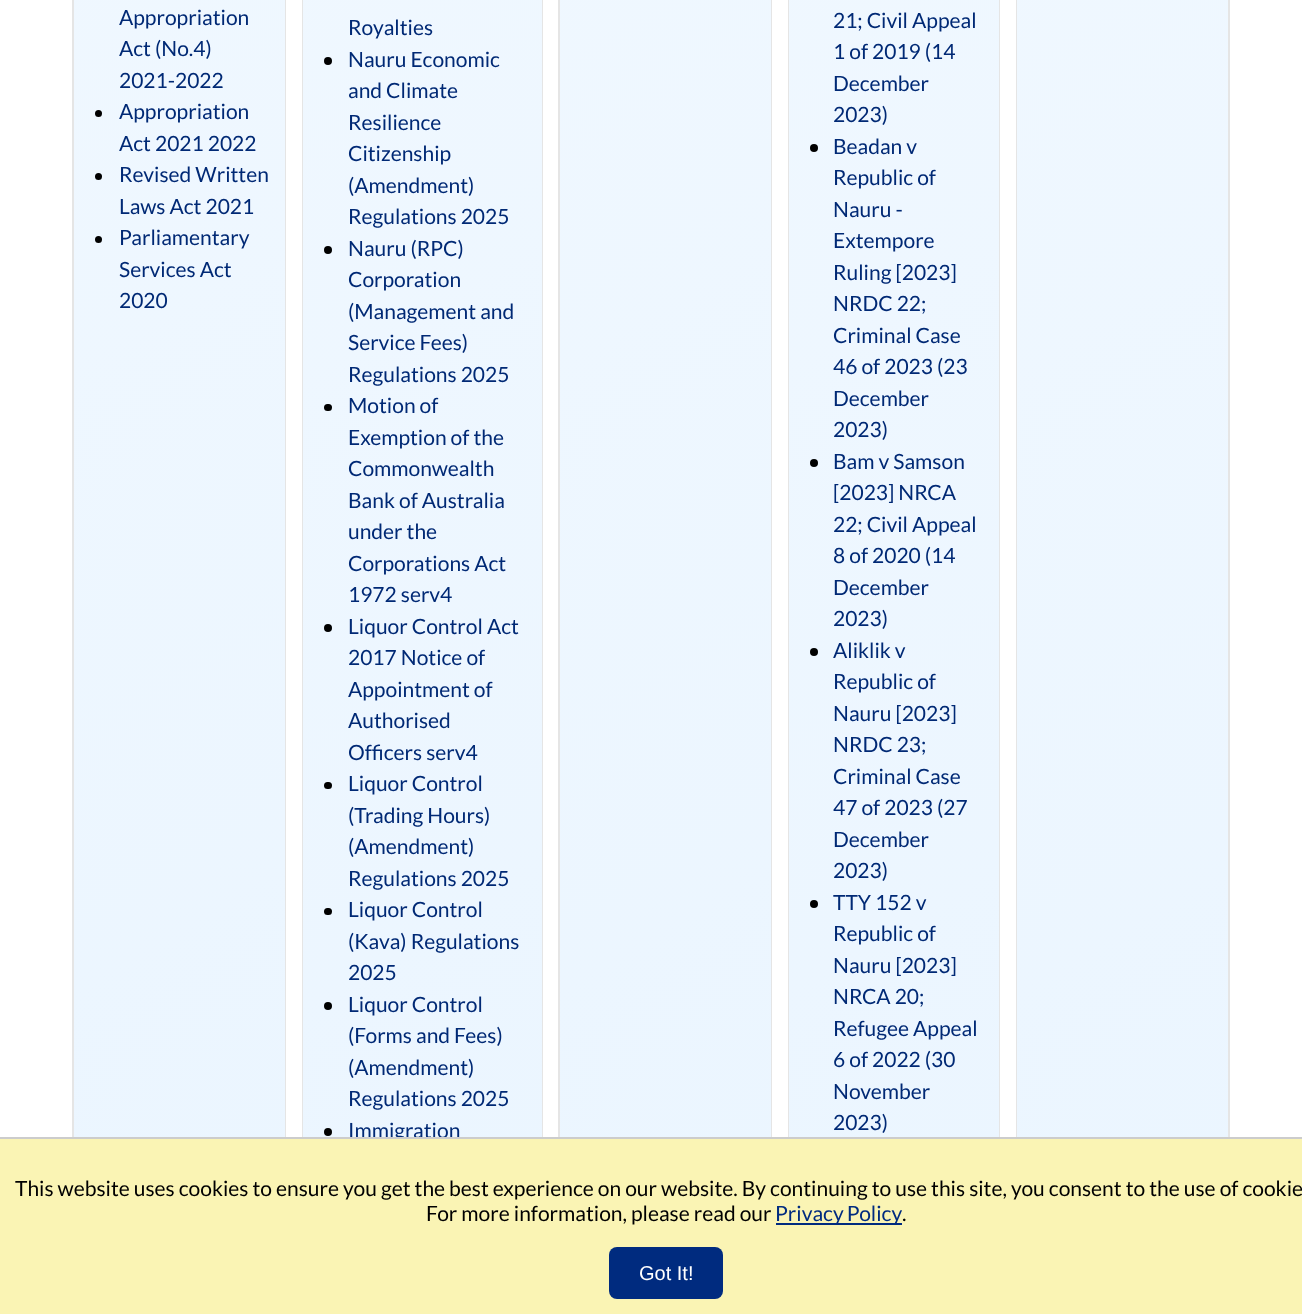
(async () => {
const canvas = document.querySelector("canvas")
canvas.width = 1302
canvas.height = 1314
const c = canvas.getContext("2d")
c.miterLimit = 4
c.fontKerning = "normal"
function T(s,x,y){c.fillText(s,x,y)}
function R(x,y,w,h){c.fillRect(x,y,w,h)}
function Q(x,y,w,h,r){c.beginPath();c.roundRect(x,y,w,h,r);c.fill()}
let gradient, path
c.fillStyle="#fff"
R(0,0,1302,1314)
gradient = c.createLinearGradient(-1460,-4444,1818,1234)
gradient.addColorStop(.05,"#fff")
gradient.addColorStop(1,"#e8f4ff")
c.fillStyle = gradient
path = new Path2D("M80-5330h205v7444c0 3-3 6-6 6h-199c-4 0-6-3-6-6v-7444z")
c.fill(path)
c.fillStyle="#e5e5e5"
path = new Path2D("M286-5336v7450c0 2-1 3-2 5l-1-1c1-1 2-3 2-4v-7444z")
c.fill(path)
path = new Path2D("M72-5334v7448c0 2 1 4 2 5l1-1c-1-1-1-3-1-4v-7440l-1-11z")
c.fill(path)
c.font="21px Lato"
c.fillStyle="#002975"
T("Appropriation",119,25)
T("Act (No.4)",119,56)
T("2021-2022",119,88)
c.fillStyle="#000"
c.beginPath()
c.arc(98.5,113.5,3.5,0,7)
c.fill()
c.fillStyle="#002975"
T("Appropriation",119,119)
T("Act 2021 2022",119,151)
c.fillStyle="#000"
c.beginPath()
c.arc(98.5,176.5,3.5,0,7)
c.fill()
c.fillStyle="#002975"
T("Revised Written",119,182)
T("Laws Act 2021",119,214)
c.fillStyle="#000"
c.beginPath()
c.arc(98.5,239.5,3.5,0,7)
c.fill()
c.fillStyle="#002975"
T("Parliamentary",119,245)
T("Services Act",119,277)
T("2020",119,308)
gradient = c.createLinearGradient(-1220,-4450,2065,1240)
gradient.addColorStop(.05,"#fff")
gradient.addColorStop(1,"#e8f4ff")
c.fillStyle = gradient
path = new Path2D("M309-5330h233v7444c0 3-3 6-6 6h-227c-3 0-6-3-6-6v-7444z")
c.fill(path)
c.fillStyle="#e5e5e5"
path = new Path2D("M543 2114v-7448l-1-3v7v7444c0 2-1 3-2 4l1 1c1-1 2-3 2-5z")
c.fill(path)
path = new Path2D("M304 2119c-1-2-2-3-2-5v-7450l1 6v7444c0 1 1 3 2 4z")
c.fill(path)
c.fillStyle="#002975"
T("Royalties",348,35)
c.fillStyle="#000"
c.beginPath()
c.arc(328,61,4,0,7)
c.fill()
c.fillStyle="#002975"
T("Nauru Economic",348,67)
T("and Climate",348,98)
T("Resilience",348,130)
T("Citizenship",348,161)
T("(Amendment)",348,193)
T("Regulations 2025",348,224)
c.fillStyle="#000"
c.beginPath()
c.arc(328,250,4,0,7)
c.fill()
c.fillStyle="#002975"
T("Nauru (RPC)",348,256)
T("Corporation",348,287)
T("(Management and",348,319)
T("Service Fees)",348,350)
T("Regulations 2025",348,382)
c.fillStyle="#000"
Q(324,404,8,7,3.5)
c.fillStyle="#002975"
T("Motion of",348,413)
T("Exemption of the",348,445)
T("Commonwealth",348,476)
T("Bank of Australia",348,508)
T("under the",348,539)
T("Corporations Act",348,571)
T("1972 serv4",348,602)
c.fillStyle="#000"
c.beginPath()
c.arc(328,628,4,0,7)
c.fill()
c.fillStyle="#002975"
T("Liquor Control Act",348,634)
T("2017 Notice of",348,665)
T("Appointment of",348,697)
T("Authorised",348,728)
T("Officers serv4",348,760)
c.fillStyle="#000"
Q(324,782,8,7,3.5)
c.fillStyle="#002975"
T("Liquor Control",348,791)
T("(Trading Hours)",348,823)
T("(Amendment)",348,854)
T("Regulations 2025",348,886)
c.fillStyle="#000"
Q(324,908,8,7,3.5)
c.fillStyle="#002975"
T("Liquor Control",348,917)
T("(Kava) Regulations",348,949)
T("2025",348,980)
c.fillStyle="#000"
c.beginPath()
c.arc(328,1006,4,0,7)
c.fill()
c.fillStyle="#002975"
T("Liquor Control",348,1012)
T("(Forms and Fees)",348,1043)
T("(Amendment)",348,1075)
T("Regulations 2025",348,1106)
c.fillStyle="#000"
c.beginPath()
c.arc(328,1132,4,0,7)
c.fill()
c.fillStyle="#002975"
T("Immigration",348,1138)
gradient = c.createLinearGradient(-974,-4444,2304,1234)
gradient.addColorStop(.05,"#fff")
gradient.addColorStop(1,"#e8f4ff")
c.fillStyle = gradient
path = new Path2D("M566-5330h205v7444c0 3-3 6-6 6h-199c-4 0-6-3-6-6v-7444z")
c.fill(path)
c.fillStyle="#e5e5e5"
path = new Path2D("M772-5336v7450c0 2-1 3-2 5l-1-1c1-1 2-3 2-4v-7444z")
c.fill(path)
path = new Path2D("M558-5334v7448c0 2 1 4 2 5l1-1c-1-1-1-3-1-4v-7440l-1-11z")
c.fill(path)
gradient = c.createLinearGradient(-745,-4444,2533,1234)
gradient.addColorStop(.05,"#fff")
gradient.addColorStop(1,"#e8f4ff")
c.fillStyle = gradient
path = new Path2D("M795-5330h204v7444c0 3-3 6-6 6h-198c-3 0-6-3-6-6v-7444z")
c.fill(path)
c.fillStyle="#e5e5e5"
path = new Path2D("M1000-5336v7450c0 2-1 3-2 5l-1-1c1-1 2-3 2-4v-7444z")
c.fill(path)
path = new Path2D("M790 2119c-1-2-2-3-2-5v-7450l1 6v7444c0 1 1 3 2 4z")
c.fill(path)
c.fillStyle="#002975"
T("21; Civil Appeal",833,28)
T("1 of 2019 (14",833,59)
T("December",833,91)
T("2023)",833,122)
c.fillStyle="#000"
c.beginPath()
c.arc(814,148,4,0,7)
c.fill()
c.fillStyle="#002975"
T("Beadan v",833,154)
T("Republic of",833,185)
T("Nauru -",833,217)
T("Extempore",833,248)
T("Ruling [2023]",833,280)
T("NRDC 22;",833,311)
T("Criminal Case",833,343)
T("46 of 2023 (23",833,374)
T("December",833,406)
T("2023)",833,437)
c.fillStyle="#000"
c.beginPath()
c.arc(814,463,4,0,7)
c.fill()
c.fillStyle="#002975"
T("Bam v Samson",833,469)
T("[2023] NRCA",833,500)
T("22; Civil Appeal",833,532)
T("8 of 2020 (14",833,563)
T("December",833,595)
T("2023)",833,626)
c.fillStyle="#000"
c.beginPath()
c.arc(814,652,4,0,7)
c.fill()
c.fillStyle="#002975"
T("Aliklik v",833,658)
T("Republic of",833,689)
T("Nauru [2023]",833,721)
T("NRDC 23;",833,752)
T("Criminal Case",833,784)
T("47 of 2023 (27",833,815)
T("December",833,847)
T("2023)",833,878)
c.fillStyle="#000"
c.beginPath()
c.arc(814,904,4,0,7)
c.fill()
c.fillStyle="#002975"
T("TTY 152 v",833,910)
T("Republic of",833,941)
T("Nauru [2023]",833,973)
T("NRCA 20;",833,1004)
T("Refugee Appeal",833,1036)
T("6 of 2022 (30",833,1067)
T("November",833,1099)
T("2023)",833,1130)
gradient = c.createLinearGradient(-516,-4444,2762,1234)
gradient.addColorStop(.05,"#fff")
gradient.addColorStop(1,"#e8f4ff")
c.fillStyle = gradient
path = new Path2D("M1023-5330h205v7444c0 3-2 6-6 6h-199c-3 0-6-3-6-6v-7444z")
c.fill(path)
c.fillStyle="#e5e5e5"
path = new Path2D("M1230 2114v-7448l-1-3l-1 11v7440c0 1 0 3-1 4l1 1c1-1 2-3 2-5z")
c.fill(path)
path = new Path2D("M1018 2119c-1-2-2-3-2-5v-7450l1 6v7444c0 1 1 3 2 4z")
c.fill(path)
c.fillStyle="#faf4b4"
R(0,1139,1302,175)
c.fillStyle="#ccc"
R(0,1137,1302,2)
c.fillStyle="#000"
T("This website uses cookies to ensure you get the best experience on our website. By continuing to use this site, you consent to the use of cookie",15,1196)
T("For more information, please read our",426,1221)
c.fillStyle="#002b7f"
R(776,1223,126,2)
c.wordSpacing="-1px"
T("Privacy Policy",775,1221)
c.wordSpacing="0px"
c.fillStyle="#000"
T(".",902,1221)
c.fillStyle="#002b7f"
Q(609,1247,114,52,8)
c.font="20px Liberation Sans"
c.fillStyle="#fff"
T("Got It!",639,1280)
})()
